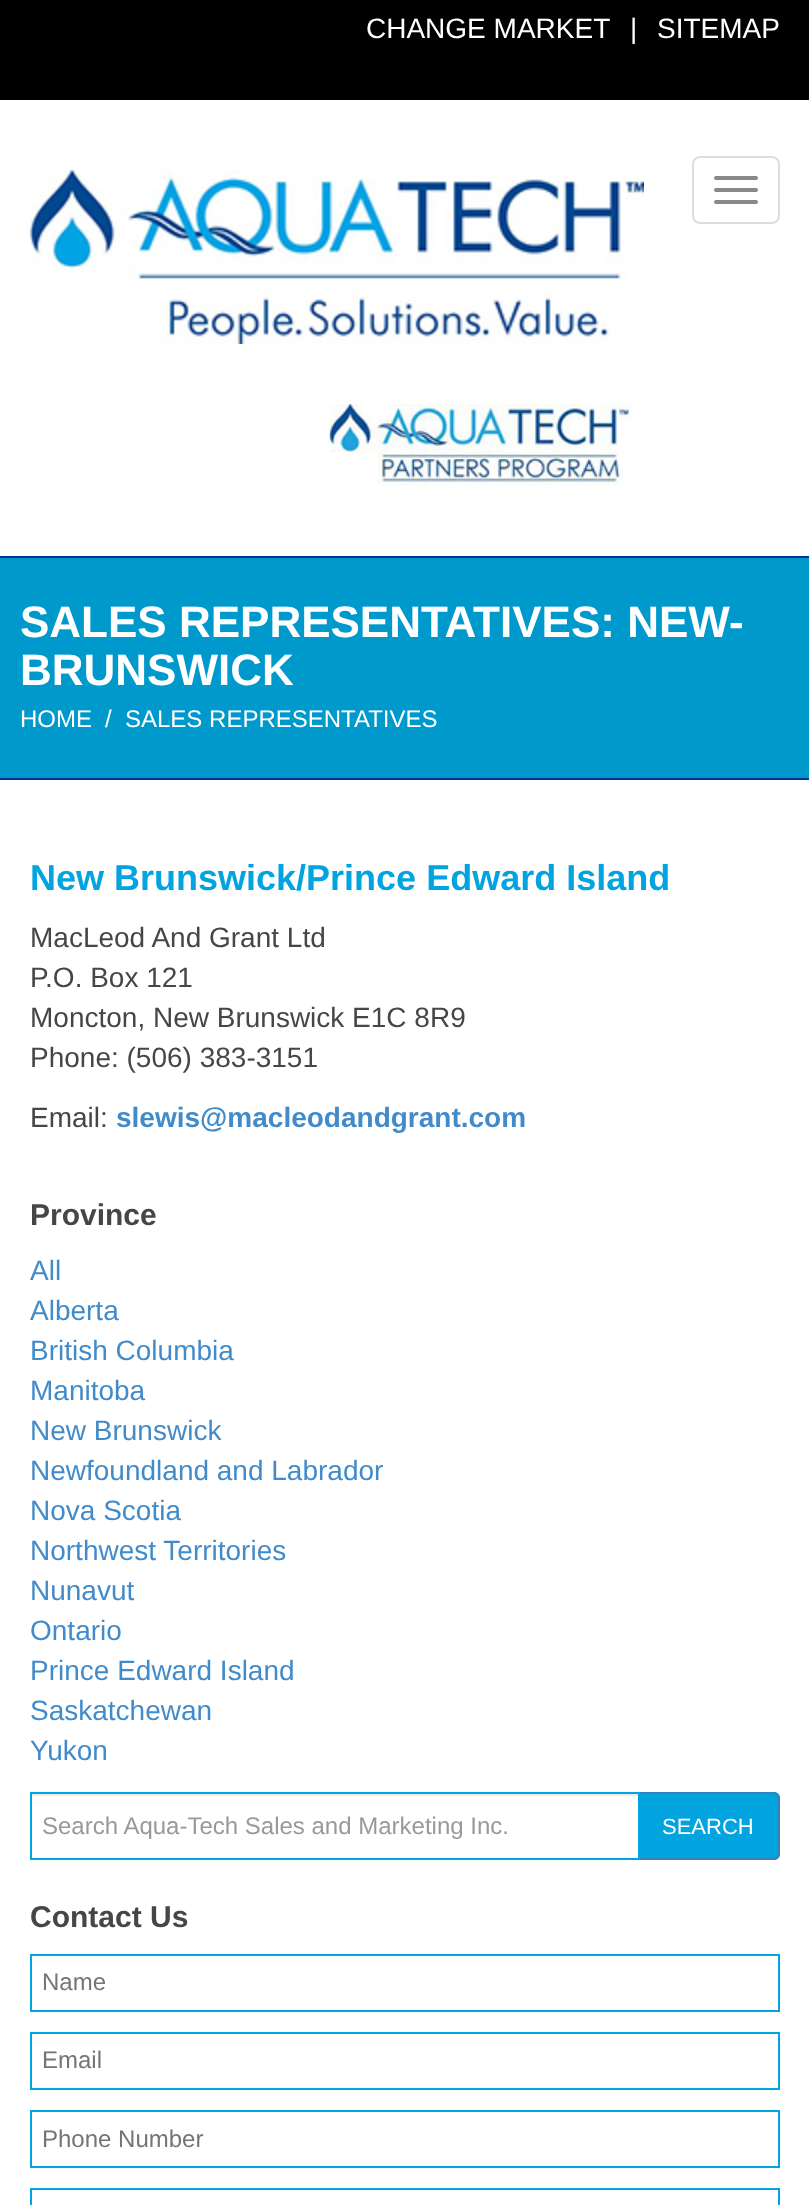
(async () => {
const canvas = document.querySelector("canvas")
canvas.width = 809
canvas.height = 2205
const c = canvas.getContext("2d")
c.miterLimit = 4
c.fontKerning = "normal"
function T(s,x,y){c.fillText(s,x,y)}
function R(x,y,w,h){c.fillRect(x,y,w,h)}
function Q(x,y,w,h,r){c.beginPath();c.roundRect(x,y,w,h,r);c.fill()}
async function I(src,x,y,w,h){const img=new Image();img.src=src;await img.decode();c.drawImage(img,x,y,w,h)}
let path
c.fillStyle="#fff"
R(0,0,809,2205)
c.fillStyle="#000"
R(0,0,809,100)
c.font="28px Liberation Sans"
c.fillStyle="#fff"
T("CHANGE MARKET",366,38)
T("|",630,38)
T("SITEMAP",657,38)
await I("1.png",30,170,614,174)
c.beginPath()
c.roundRect(693,157,86,66,7)
c.strokeStyle="#ddd"
c.lineWidth=2
c.stroke()
c.fillStyle="#888"
Q(714,176,44,4,2)
Q(714,188,44,4,2)
Q(714,200,44,4,2)
await I("2.png",329,404,301,82)
c.fillStyle="#09c"
R(0,558,809,220)
c.fillStyle="#039"
R(0,556,809,2)
R(0,778,809,2)
c.font="bold 44px Liberation Sans"
c.fillStyle="#fff"
T("SALES REPRESENTATIVES: NEW-",20,637)
T("BRUNSWICK",20,685)
c.font="24px Liberation Sans"
T("HOME",20,727)
T("/",105,727)
T("SALES REPRESENTATIVES",125,727)
c.font="bold 36px Liberation Sans"
c.fillStyle="#01a4df"
T("New Brunswick/Prince Edward Island",30,890)
c.font="28px Liberation Sans"
c.fillStyle="#464646"
T("MacLeod And Grant Ltd",30,947)
T("P.O. Box 121",30,987)
T("Moncton, New Brunswick E1C 8R9",30,1027)
T("Phone: (506) 383-3151",30,1067)
T("Email:",30,1127)
c.font="bold 28px Liberation Sans"
c.fillStyle="#428bca"
T("slewis@macleodandgrant.com",116,1127)
c.font="bold 30px Liberation Sans"
c.fillStyle="#464646"
T("Province",30,1225)
c.font="28px Liberation Sans"
c.fillStyle="#428bca"
T("All",30,1280)
T("Alberta",30,1320)
T("British Columbia",30,1360)
T("Manitoba",30,1400)
T("New Brunswick",30,1440)
T("Newfoundland and Labrador",30,1480)
T("Nova Scotia",30,1520)
T("Northwest Territories",30,1560)
T("Nunavut",30,1600)
T("Ontario",30,1640)
T("Prince Edward Island",30,1680)
T("Saskatchewan",30,1720)
T("Yukon",30,1760)
c.fillStyle="#ececec"
R(32,1794,606,2)
c.fillStyle="#01a4df"
c.beginPath()
c.roundRect(638,1792,142,68,[0,6,6,0])
c.fill()
c.fillStyle="#397fba"
path = new Path2D("M638 1792h136c3 0 6 3 6 6v56c0 3-3 6-6 6h-136zm0 2h136c2 0 4 2 4 4v56c0 2-2 4-4 4h-136z")
c.fill(path,"evenodd")
c.strokeStyle="#01a4df"
c.strokeRect(31,1793,608,66)
c.font="24px Liberation Sans"
c.fillStyle="#999"
T("Search Aqua-Tech Sales and Marketing Inc.",42,1834)
c.font="22px Liberation Sans"
c.fillStyle="#fff"
T("SEARCH",662,1834)
c.font="bold 30px Liberation Sans"
c.fillStyle="#464646"
T("Contact Us",30,1927)
c.strokeRect(31,1955,748,56)
c.font="24px Liberation Sans"
c.fillStyle="#757575"
T("Name",42,1990)
c.strokeRect(31,2033,748,56)
T("Email",42,2068)
c.strokeRect(31,2111,748,56)
T("Phone Number",42,2147)
c.strokeRect(31,2189,748,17)
})()
